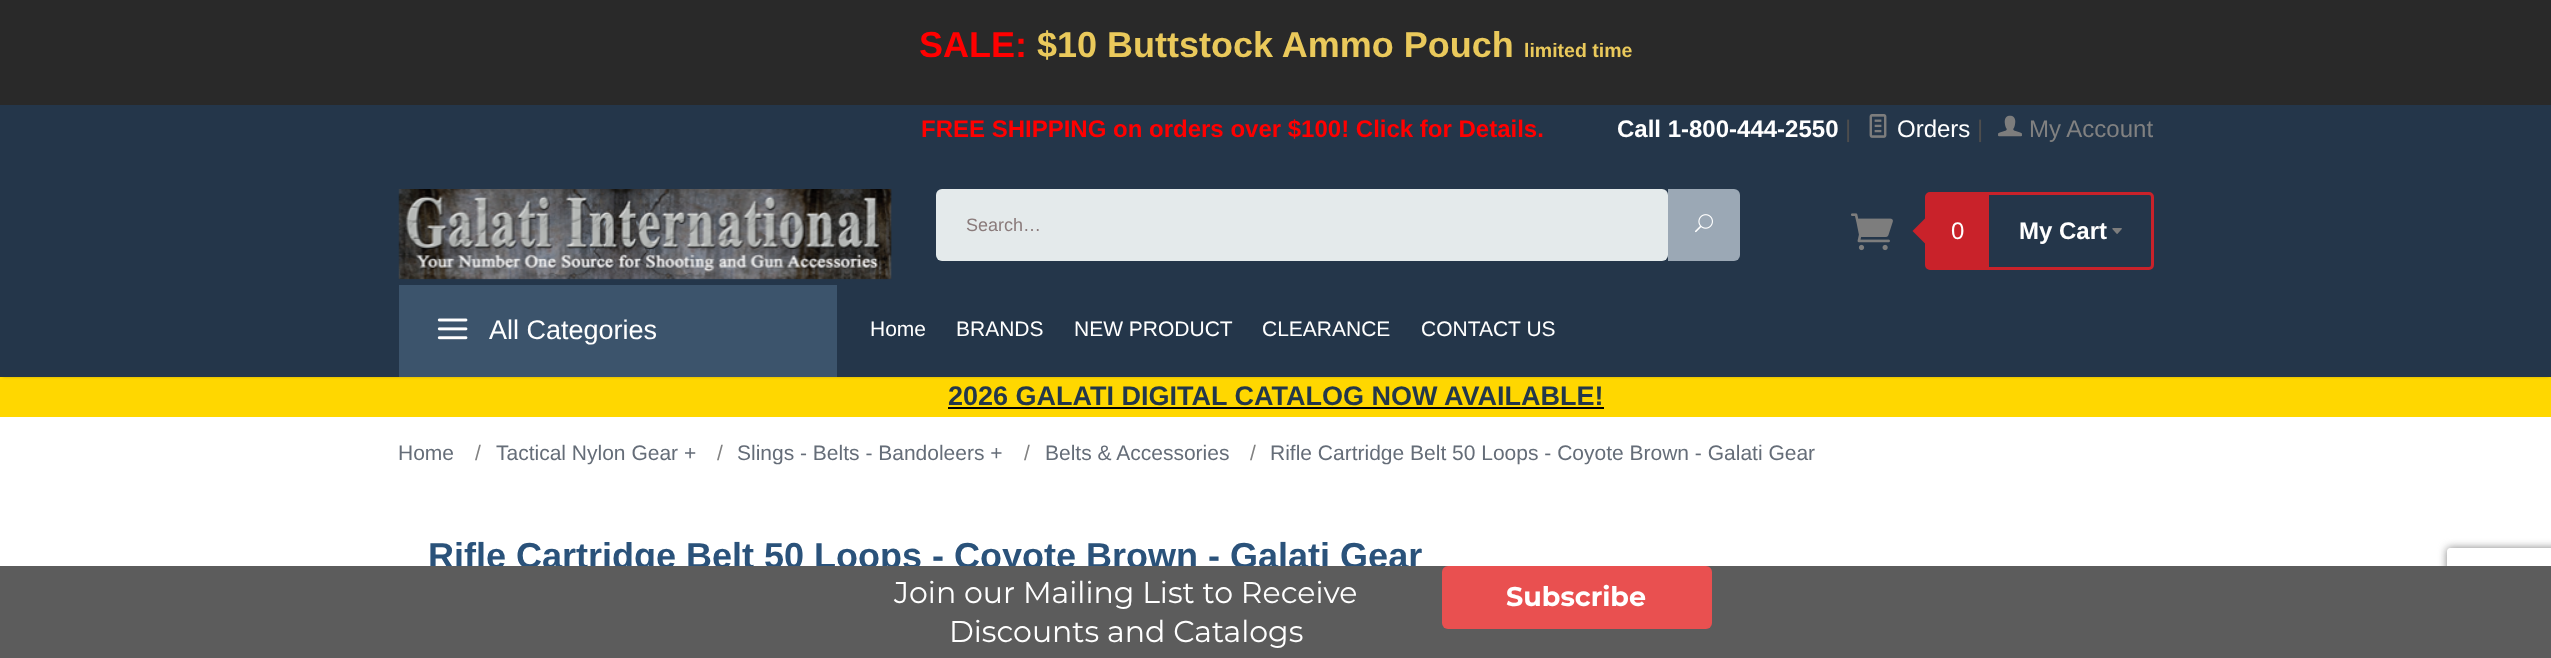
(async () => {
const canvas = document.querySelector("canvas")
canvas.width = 2551
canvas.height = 658
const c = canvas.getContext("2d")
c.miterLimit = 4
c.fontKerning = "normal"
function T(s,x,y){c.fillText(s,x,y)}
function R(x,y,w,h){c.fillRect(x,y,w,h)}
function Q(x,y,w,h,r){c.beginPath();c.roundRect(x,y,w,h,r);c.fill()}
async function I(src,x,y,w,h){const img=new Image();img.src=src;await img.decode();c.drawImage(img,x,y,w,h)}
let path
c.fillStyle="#fff"
R(0,0,2551,658)
c.fillStyle="#292929"
R(0,0,2551,105)
c.font="bold 36px Liberation Sans"
c.fillStyle="#f00"
T("SALE:",919,57)
c.fillStyle="#eac95b"
T("$10 Buttstock Ammo Pouch",1037,57)
c.font="bold 19.5px Liberation Sans"
T("limited time",1524,57)
c.fillStyle="#24364a"
R(0,105,2551,66)
c.font="bold 24px Liberation Sans"
c.fillStyle="#f00"
T("FREE SHIPPING on orders over $100! Click for Details.",921,137)
c.fillStyle="#fff"
T("Call 1-800-444-2550",1617,137)
c.font="24px Liberation Sans"
c.fillStyle="#4d4d4d"
T("|",1845,137)
await I("1.png",1869,114,18,24)
c.fillStyle="#fff"
T("Orders",1897,137)
c.fillStyle="#4d4d4d"
T("|",1977,137)
await I("2.png",1998,115,24,22)
c.fillStyle="#818181"
T("My Account",2029,137)
c.fillStyle="#ffd700"
R(0,377,2551,40)
c.fillStyle="#00000033"
c.filter="blur(1.5px)"
c.beginPath()
c.rect(3,177,2546,200)
c.fill()
c.filter="none"
c.fillStyle="#24364a"
R(0,171,2551,206)
await I("3.png",398,189,494,91)
c.fillStyle="#e4eaeb"
Q(936,189,732,72,6)
c.font="18px Liberation Sans"
c.fillStyle="#8a7b7b"
T("Search…",966,231)
c.fillStyle="#9ba8b5"
c.beginPath()
c.roundRect(1668,189,72,72,[0,6,6,0])
c.fill()
await I("4.png",1695,214,18,19)
await I("5.png",1851,213,42,38)
c.beginPath()
c.roundRect(1926.5,193.5,226,75,3.5)
c.strokeStyle="#c9222a"
c.lineWidth=3
c.stroke()
c.fillStyle="#c9222a"
path = new Path2D("M1927.5 216v30l-15-15z")
c.fill(path)
R(1928,195,61,72)
c.font="24px Liberation Sans"
c.fillStyle="#fff"
T("0",1951,239)
c.font="bold 24px Liberation Sans"
T("My Cart",2019,239)
await I("6.png",2112,228,10,6)
c.fillStyle="#3c546c"
R(399,285,438,92)
await I("7.png",437,318,31,22)
c.font="27px Liberation Sans"
c.fillStyle="#fff"
T("All Categories",489,339)
c.font="21px Liberation Sans"
T("Home",870,336)
T("BRANDS",956,336)
T("NEW PRODUCT",1074,336)
T("CLEARANCE",1262,336)
T("CONTACT US",1421,336)
c.font="bold 27px Liberation Sans"
c.fillStyle="#23374a"
T("2026 GALATI DIGITAL CATALOG NOW AVAILABLE!",948,405)
c.fillStyle="#000"
R(948,407,656,2)
c.font="21px Liberation Sans"
c.fillStyle="#656d78"
T("Home",398,460)
c.fillStyle="#818181"
T("/",475,460)
c.fillStyle="#656d78"
T("Tactical Nylon Gear +",496,460)
c.fillStyle="#818181"
T("/",717,460)
c.fillStyle="#656d78"
T("Slings - Belts - Bandoleers +",737,460)
c.fillStyle="#818181"
T("/",1024,460)
c.fillStyle="#656d78"
T("Belts & Accessories",1045,460)
c.fillStyle="#818181"
T("/",1250,460)
c.fillStyle="#656d78"
T("Rifle Cartridge Belt 50 Loops - Coyote Brown - Galati Gear",1270,460)
c.font="bold 36px Liberation Sans"
c.fillStyle="#2a527a"
T("Rifle Cartridge Belt 50 Loops - Coyote Brown - Galati Gear",428,568)
c.save()
path = new Path2D("M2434 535h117v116h-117zm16 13h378c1.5 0 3 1.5 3 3v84c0 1.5-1.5 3-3 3h-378c-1.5 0-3-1.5-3-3v-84c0-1.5 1.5-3 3-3z")
c.clip(path,"evenodd")
c.fillStyle="#808080"
c.filter="blur(4px)"
c.beginPath()
c.roundRect(2447,548,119,90,3)
c.fill()
c.filter="none"
c.restore()
c.fillStyle="#5c5c5c"
R(0,566,2551,92)
c.font="30px Montserrat"
c.fillStyle="#fff"
T("Join our Mailing List to Receive",894,603)
T("Discounts and Catalogs",949,642)
c.fillStyle="#e95050"
Q(1442,566,270,63,6)
c.font="bold 27px Montserrat"
c.fillStyle="#fff"
T("Subscribe",1506,606)
})()
